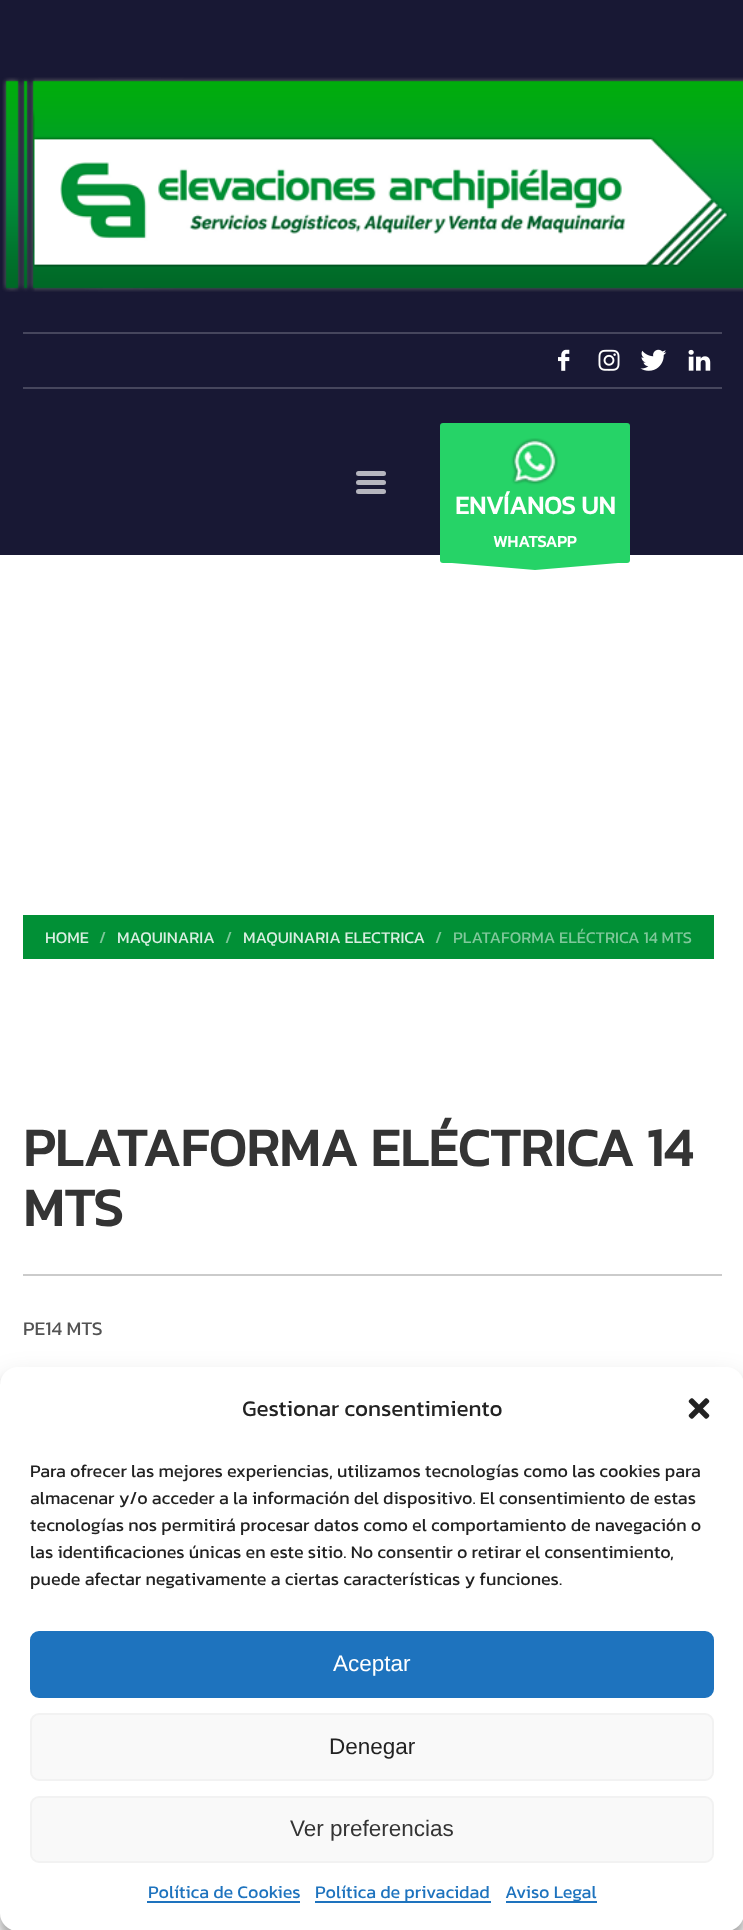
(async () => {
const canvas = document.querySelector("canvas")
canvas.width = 743
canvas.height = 1930
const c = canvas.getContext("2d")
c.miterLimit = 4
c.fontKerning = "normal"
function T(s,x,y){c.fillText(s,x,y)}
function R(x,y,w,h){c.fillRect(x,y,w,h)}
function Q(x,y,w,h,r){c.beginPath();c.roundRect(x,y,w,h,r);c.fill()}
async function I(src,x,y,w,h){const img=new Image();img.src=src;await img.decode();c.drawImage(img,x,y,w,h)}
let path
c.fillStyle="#fff"
R(0,0,743,1930)
c.fillStyle="#181834"
R(0,0,743,555)
await I("1.png",2,77,741,215)
await I("2.png",34,136,695,131)
c.fillStyle="#46465d"
R(23,332,699,2)
await I("3.png",558,349,12,22)
await I("4.png",598,349,22,22)
await I("5.png",640,349,27,22)
await I("6.png",688,349,23,22)
R(23,387,699,2)
c.fillStyle="#b5b5be"
Q(356,471,30,5,2.5)
Q(356,480,30,5,2.5)
Q(356,489,30,5,2.5)
c.fillStyle="#26d367"
Q(440,423,190,140,3)
await I("7.png",511,438,47,47)
c.font="bold 25.5px Kanit"
c.fillStyle="#fff"
T("ENVÍANOS UN",455,514)
c.font="bold 16.5px Kanit"
T("WHATSAPP",493,547)
c.save()
c.beginPath()
c.rect(440,563,190,7)
c.clip()
c.fillStyle="#26d367"
path = new Path2D("M630 562l-95 8l-95-8z")
c.fill(path,"evenodd")
c.restore()
c.fillStyle="#019036"
R(23,915,691,44)
c.font="16.5px Kanit"
c.fillStyle="#d9eee1"
T("HOME",45,943)
c.fillStyle="#80c89b"
T("/",99,943)
c.fillStyle="#d9eee1"
T("MAQUINARIA",117,943)
c.fillStyle="#80c89b"
T("/",225,943)
c.fillStyle="#d9eee1"
T("MAQUINARIA ELECTRICA",243,943)
c.fillStyle="#80c89b"
T("/",435,943)
T("PLATAFORMA ELÉCTRICA 14 MTS",453,943)
c.fillStyle="#cbcbcb"
R(23,1274,699,2)
c.font="bold 54px Kanit"
c.fillStyle="#343434"
T("PLATAFORMA ELÉCTRICA 14",23,1166)
T("MTS",23,1226)
c.font="19.5px Kanit"
c.fillStyle="#535353"
T("PE14 MTS",23,1335)
c.fillStyle="#0000003b"
c.filter="blur(4.5px)"
c.beginPath()
c.roundRect(0,1376,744,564,18)
c.fill()
c.filter="none"
c.fillStyle="#00000030"
c.filter="blur(15px)"
c.beginPath()
c.roundRect(0,1382,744,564,18)
c.fill()
c.filter="none"
c.fillStyle="#fff"
Q(0,1367,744,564,18)
c.font="22.5px Kanit"
c.fillStyle="#222"
T("Gestionar consentimiento",242,1416)
await I("8.png",688,1398,22,21)
c.font="18px Kanit"
T("Para ofrecer las mejores experiencias, utilizamos tecnologías como las cookies para",30,1477)
T("almacenar y/o acceder a la información del dispositivo. El consentimiento de estas",30,1504)
T("tecnologías nos permitirá procesar datos como el comportamiento de navegación o",30,1531)
T("las identificaciones únicas en este sitio. No consentir o retirar el consentimiento,",30,1558)
T("puede afectar negativamente a ciertas características y funciones.",30,1585)
c.fillStyle="#1e73be"
c.beginPath()
c.roundRect(31,1632,682,65,8)
c.fill()
c.strokeStyle="#1e73be"
c.lineWidth=2
c.stroke()
c.font="22.5px Liberation Sans"
c.fillStyle="#fff"
T("Aceptar",333,1671)
c.fillStyle="#f9f9f9"
c.beginPath()
c.roundRect(31,1714,682,66,8)
c.fill()
c.strokeStyle="#f2f2f2"
c.stroke()
c.fillStyle="#222"
T("Denegar",329,1754)
c.fillStyle="#f9f9f9"
c.beginPath()
c.roundRect(31,1797,682,65,8)
c.fill()
c.stroke()
c.fillStyle="#343434"
T("Ver preferencias",290,1836)
c.font="18px Kanit"
c.fillStyle="#1e73be"
T("Política de Cookies",148,1898)
R(147,1901,153,2)
R(315,1901,176,2)
T("Política de privacidad",315,1898)
R(506,1901,91,2)
T("Aviso Legal",505,1898)
})()
